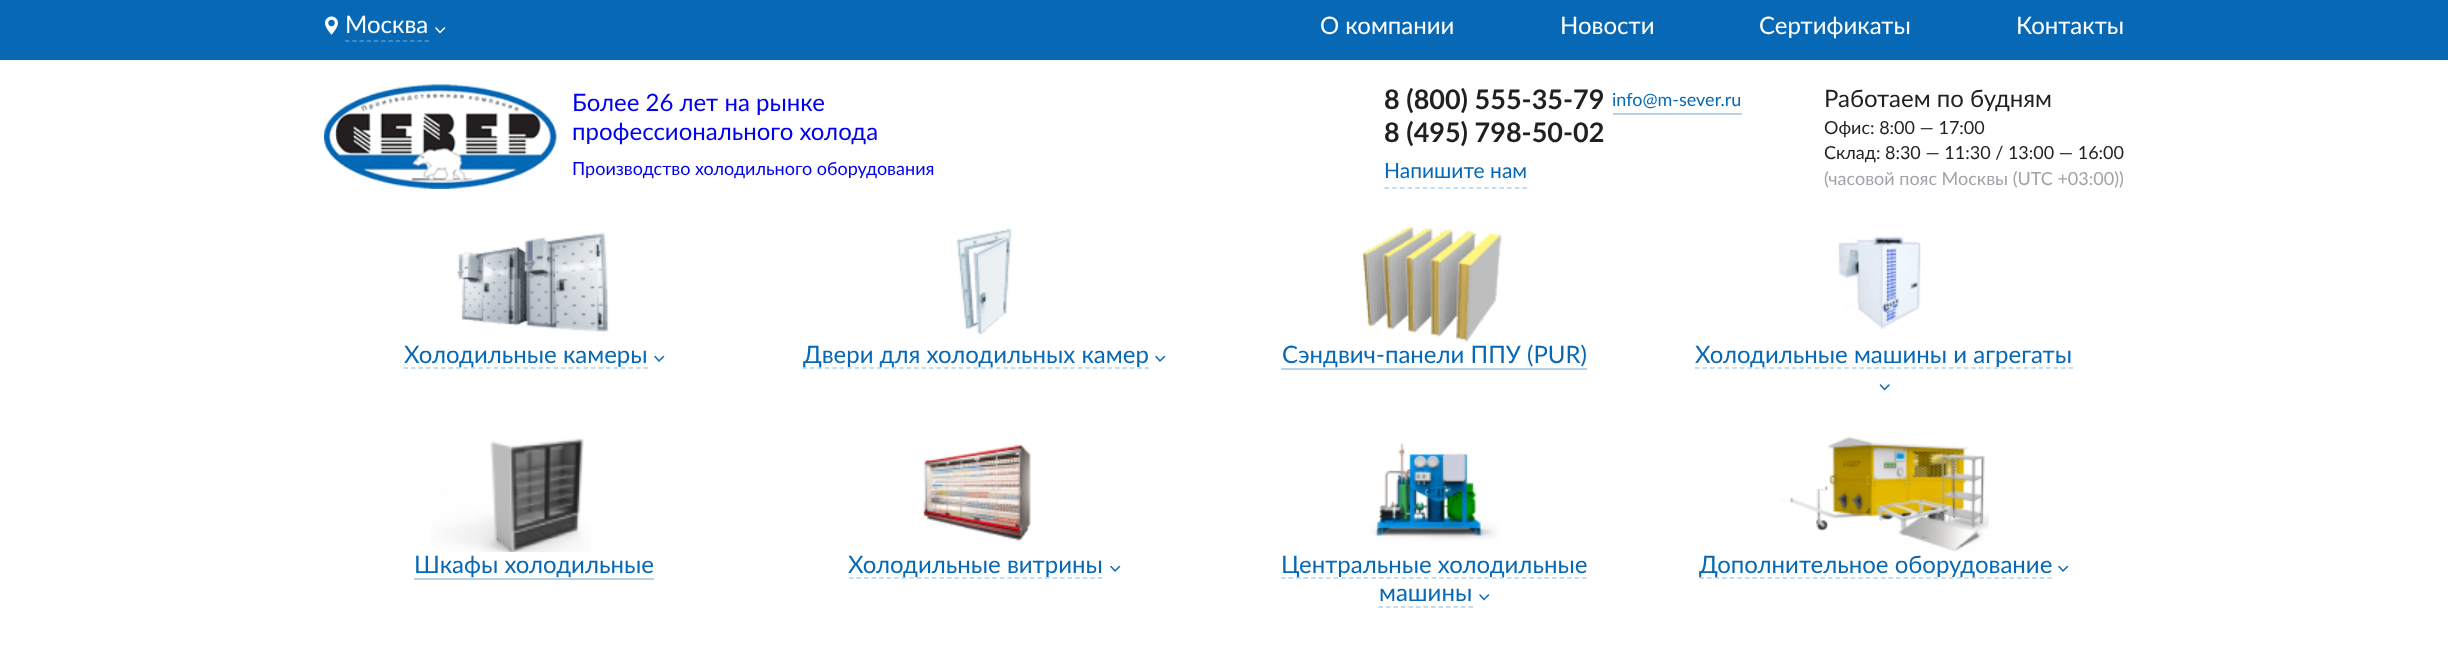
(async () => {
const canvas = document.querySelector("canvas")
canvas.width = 2448
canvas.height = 670
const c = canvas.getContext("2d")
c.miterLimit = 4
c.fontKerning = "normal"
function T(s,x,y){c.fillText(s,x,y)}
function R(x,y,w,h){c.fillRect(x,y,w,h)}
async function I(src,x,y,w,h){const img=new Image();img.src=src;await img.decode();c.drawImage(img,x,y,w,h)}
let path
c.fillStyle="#fff"
R(0,0,2448,670)
c.fillStyle="#0769b5"
R(0,0,2448,60)
await I("1.png",325,16,13,19)
path = new Path2D("M345 41h84")
c.strokeStyle="#5196cb"
c.lineWidth=1.5
c.setLineDash([4.5,2.73])
c.stroke(path)
c.font="24px Lato"
c.fillStyle="#fff"
T("Москва",345,33)
path = new Path2D("M436 28l4 4.5l4.5-4.5")
c.strokeStyle="#fff"
c.lineCap="round"
c.setLineDash([])
c.stroke(path)
T("О компании",1320,34)
T("Новости",1560,34)
T("Сертификаты",1759,34)
T("Контакты",2016,34)
await I("2.png",324,84,233,105)
c.fillStyle="#00e"
T("Более 26 лет на рынке",572,111)
T("профессионального холода",572,140)
c.font="18px Lato"
T("Производство холодильного оборудования",572,175)
c.font="bold 27px Lato"
c.fillStyle="#1f2022"
T("8 (800) 555-35-79",1384,109)
c.fillStyle="#b5d2e9"
R(1613,113,129,2)
c.font="18px Lato"
c.fillStyle="#0769b5"
T("info@m-sever.ru",1612,106)
c.font="bold 27px Lato"
c.fillStyle="#1f2022"
T("8 (495) 798-50-02",1384,142)
path = new Path2D("M1384.5 188h142.5")
c.strokeStyle="#b5d2e9"
c.lineCap="butt"
c.setLineDash([4.5,3.17])
c.stroke(path)
c.font="21px Lato"
c.fillStyle="#0769b5"
T("Напишите нам",1384,178)
c.font="24px Lato"
c.fillStyle="#1f2022"
T("Работаем по будням",1824,107)
c.font="18px Lato"
T("Офис: 8:00 — 17:00",1824,134)
T("Склад: 8:30 — 11:30 / 13:00 — 16:00",1824,159)
c.fillStyle="#a0a3a8"
T("(часовой пояс Москвы (UTC +03:00))",1824,185)
await I("3.png",457,232,152,100)
path = new Path2D("M403.5 368h244.5")
c.setLineDash([4.5,3])
c.stroke(path)
c.font="24px Lato"
c.fillStyle="#0769b5"
T("Холодильные камеры",404,363)
c.save()
c.beginPath()
c.rect(654,356,11,7)
c.clip()
path = new Path2D("M655 356.5l4 4.5l4.5-4.5")
c.strokeStyle="#0769b5"
c.lineCap="round"
c.setLineDash([])
c.stroke(path)
c.restore()
await I("4.png",956,228,56,107)
path = new Path2D("M802.5 368h346.5")
c.setLineDash([4.5,2.94])
c.stroke(path)
T("Двери для холодильных камер",803,363)
c.save()
c.beginPath()
c.rect(1155,356,11,7)
c.clip()
path = new Path2D("M1156 356.5l4 4.5l4.5-4.5")
c.strokeStyle="#0769b5"
c.lineCap="round"
c.setLineDash([])
c.stroke(path)
c.restore()
await I("5.png",1361,226,141,116)
T("Сэндвич-панели ППУ (PUR)",1282,363)
c.fillStyle="#b5d2e9"
R(1281,368,306,2)
await I("6.png",1838,236,83,93)
path = new Path2D("M1695 368h378")
c.setLineDash([4.5,2.97])
c.stroke(path)
c.fillStyle="#0769b5"
T("Холодильные машины и агрегаты",1695,363)
path = new Path2D("M1880.5 385l4 4.5l4.5-4.5")
c.strokeStyle="#0769b5"
c.lineCap="round"
c.setLineDash([])
c.stroke(path)
await I("7.png",431,438,160,114)
T("Шкафы холодильные",414,573)
c.fillStyle="#b5d2e9"
R(414,578,240,2)
await I("8.png",923,444,108,97)
path = new Path2D("M849 578h253.5")
c.strokeStyle="#b5d2e9"
c.lineCap="butt"
c.setLineDash([4.5,3.04])
c.stroke(path)
c.fillStyle="#0769b5"
T("Холодильные витрины",848,573)
c.save()
c.beginPath()
c.rect(1110,566,11,7)
c.clip()
path = new Path2D("M1111 566.5l4 4.5l4.5-4.5")
c.strokeStyle="#0769b5"
c.lineCap="round"
c.setLineDash([])
c.stroke(path)
c.restore()
await I("9.png",1370,443,129,98)
path = new Path2D("M1281 578h306")
c.setLineDash([4.5,3.03])
c.stroke(path)
T("Центральные холодильные",1281,573)
T("машины",1379,601)
path = new Path2D("M1378.5 607h94.5")
c.setLineDash([4.5,3])
c.stroke(path)
path = new Path2D("M1480 595l4 4.5l4.5-4.5")
c.strokeStyle="#0769b5"
c.lineCap="round"
c.setLineDash([])
c.stroke(path)
await I("10.png",1781,436,208,116)
path = new Path2D("M1699.5 578h352.5")
c.strokeStyle="#b5d2e9"
c.lineCap="butt"
c.setLineDash([4.5,3.06])
c.stroke(path)
T("Дополнительное оборудование",1699,573)
c.save()
c.beginPath()
c.rect(2058,566,11,7)
c.clip()
path = new Path2D("M2059 566.5l4 4.5l4.5-4.5")
c.strokeStyle="#0769b5"
c.lineCap="round"
c.setLineDash([])
c.stroke(path)
c.restore()
})()
